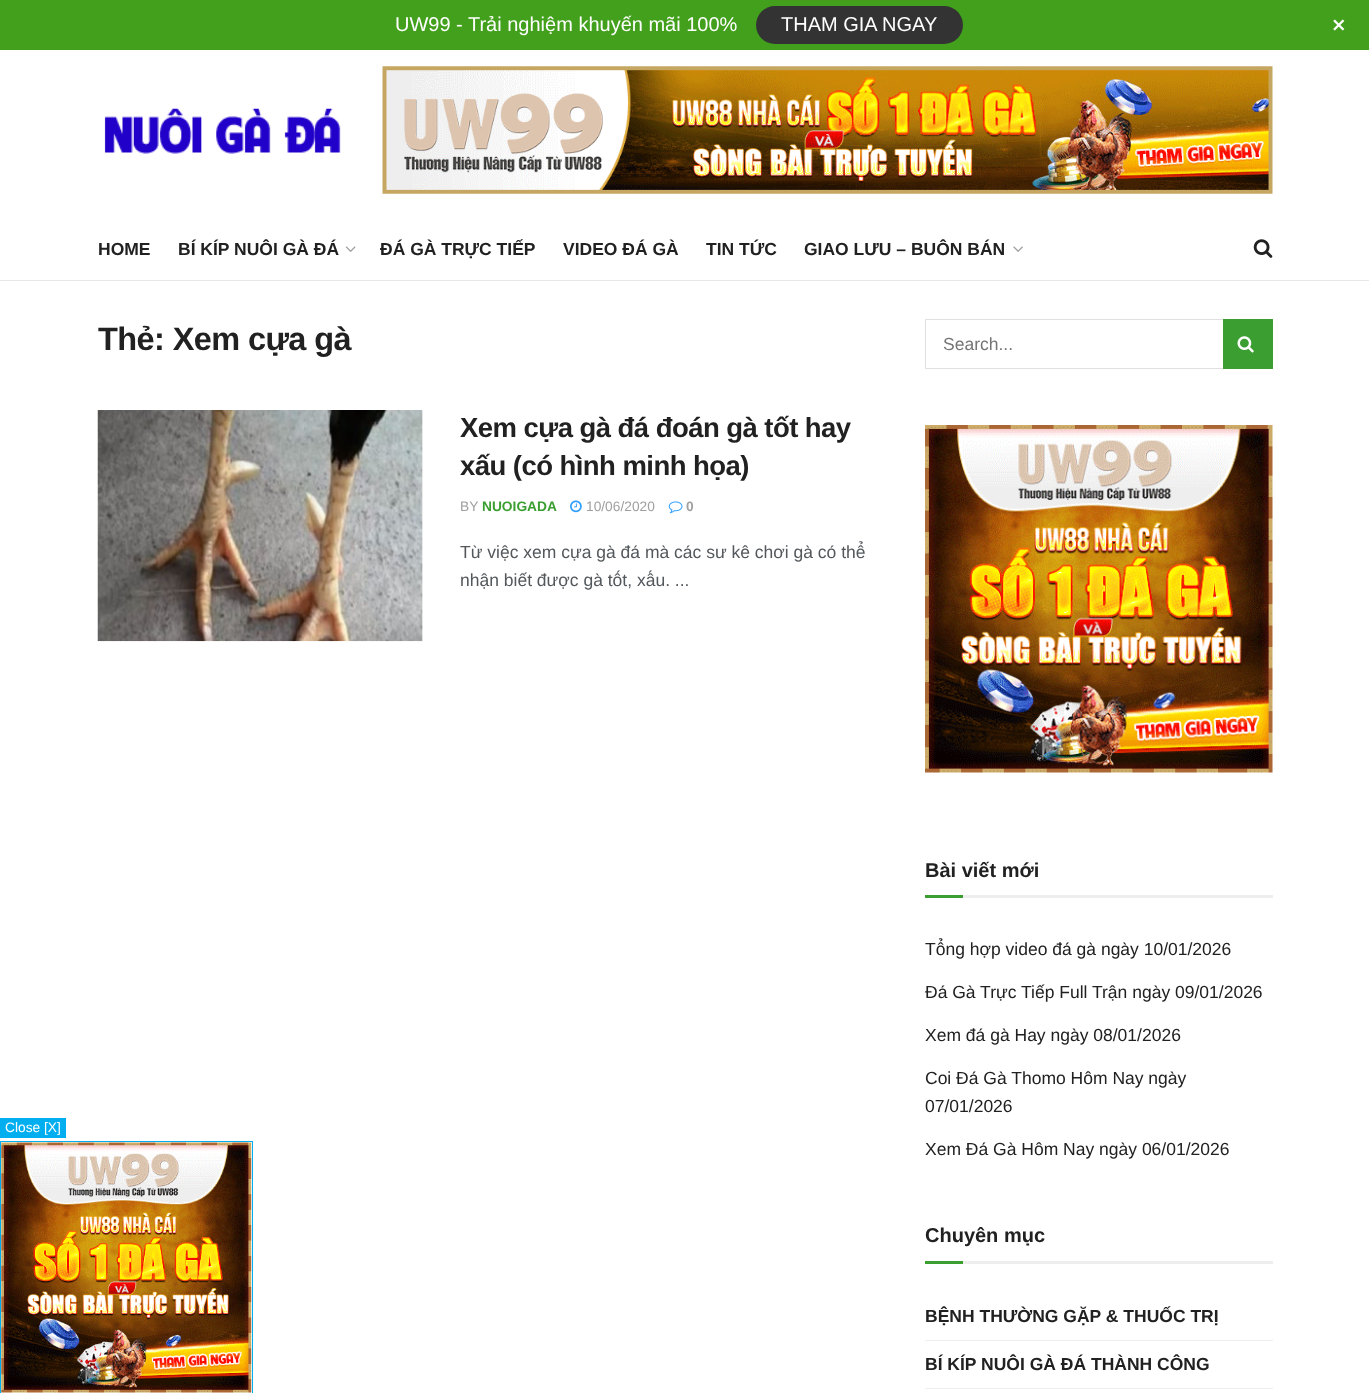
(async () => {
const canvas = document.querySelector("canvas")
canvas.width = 1369
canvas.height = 1393
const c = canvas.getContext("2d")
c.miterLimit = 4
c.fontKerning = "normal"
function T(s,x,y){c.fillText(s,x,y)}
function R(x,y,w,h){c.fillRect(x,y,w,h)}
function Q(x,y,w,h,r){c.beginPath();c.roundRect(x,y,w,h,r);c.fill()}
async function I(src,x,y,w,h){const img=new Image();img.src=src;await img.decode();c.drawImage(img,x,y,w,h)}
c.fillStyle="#fff"
R(0,0,1369,1393)
c.fillStyle="#42a01c"
R(0,0,1369,50)
c.font="20px Liberation Sans"
c.fillStyle="#fff"
T("UW99 - Trải nghiệm khuyến mãi 100%",395,31)
c.fillStyle="#333"
Q(756,6,207,38,19)
c.fillStyle="#fff"
T("THAM GIA NGAY",781,31)
await I("1.png",1333,19,12,12)
c.fillStyle="#01aef0"
R(0,1118,66,20)
c.font="13.75px Liberation Sans"
c.fillStyle="#fff"
T("Close [X]",5,1132)
c.strokeStyle="#01aef0"
c.strokeRect(.5,1141.5,252,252)
await I("2.png",1,1142,251,251)
await I("3.png",104,108,237,46)
await I("4.png",382,66,891,128)
c.fillStyle="#e8e8e8"
R(0,280,1369,1)
c.font="bold 17.5px Liberation Sans"
c.fillStyle="#212121"
T("HOME",98,255)
T("BÍ KÍP NUÔI GÀ ĐÁ",178,255)
await I("5.png",345,246,11,6)
T("ĐÁ GÀ TRỰC TIẾP",380,255)
T("VIDEO ĐÁ GÀ",563,255)
T("TIN TỨC",706,255)
T("GIAO LƯU – BUÔN BÁN",804,255)
await I("6.png",1013,246,10,6)
await I("7.png",1253,239,20,19)
c.letterSpacing="-0.6px"
c.font="bold 32.5px Liberation Sans"
T("Thẻ: Xem cựa gà",98,350)
c.fillStyle="#f7f7f7"
R(422,410,1,231)
await I("8.png",97,410,326,232)
c.letterSpacing="-0.55px"
c.font="bold 27.5px Liberation Sans"
c.fillStyle="#212121"
T("Xem cựa gà đá đoán gà tốt hay",460,437)
T("xấu (có hình minh họa)",460,475)
c.letterSpacing="0px"
c.font="13.75px Liberation Sans"
c.fillStyle="#a0a0a0"
T("BY",460,511)
c.font="bold 13.75px Liberation Sans"
c.fillStyle="#3b9e31"
T("NUOIGADA",482,511)
await I("9.png",570,500,12,13)
c.font="13.75px Liberation Sans"
c.fillStyle="#a0a0a0"
T("10/06/2020",586,511)
await I("10.png",668,501,15,13)
c.font="bold 13.75px Liberation Sans"
T("0",686,511)
c.font="17.5px Liberation Sans"
c.fillStyle="#53585c"
T("Từ việc xem cựa gà đá mà các sư kê chơi gà có thể",460,558)
T("nhận biết được gà tốt, xấu. ...",460,586)
c.strokeStyle="#e0e0e0"
c.strokeRect(925.5,319.5,347,49)
c.fillStyle="#757575"
T("Search...",943,350)
c.fillStyle="#3b9e31"
R(1223,319,50,50)
await I("11.png",1237,336,17,17)
await I("12.png",925,425,348,348)
c.fillStyle="#eee"
R(963,895,310,3)
c.font="bold 20px Liberation Sans"
c.fillStyle="#212121"
T("Bài viết mới",925,877)
c.fillStyle="#3b9e31"
R(925,895,38,3)
c.font="17.5px Liberation Sans"
c.fillStyle="#212121"
T("Tổng hợp video đá gà ngày 10/01/2026",925,955)
T("Đá Gà Trực Tiếp Full Trận ngày 09/01/2026",925,998)
T("Xem đá gà Hay ngày 08/01/2026",925,1041)
T("Coi Đá Gà Thomo Hôm Nay ngày",925,1084)
T("07/01/2026",925,1112)
T("Xem Đá Gà Hôm Nay ngày 06/01/2026",925,1155)
c.fillStyle="#eee"
R(963,1261,310,3)
c.font="bold 20px Liberation Sans"
c.fillStyle="#212121"
T("Chuyên mục",925,1242)
c.fillStyle="#3b9e31"
R(925,1261,38,3)
c.font="bold 17.5px Liberation Sans"
c.fillStyle="#212121"
T("BỆNH THƯỜNG GẶP & THUỐC TRỊ",925,1322)
c.fillStyle="#eee"
R(925,1340,348,1)
c.fillStyle="#212121"
T("BÍ KÍP NUÔI GÀ ĐÁ THÀNH CÔNG",925,1370)
c.fillStyle="#eee"
R(925,1388,348,1)
})()
